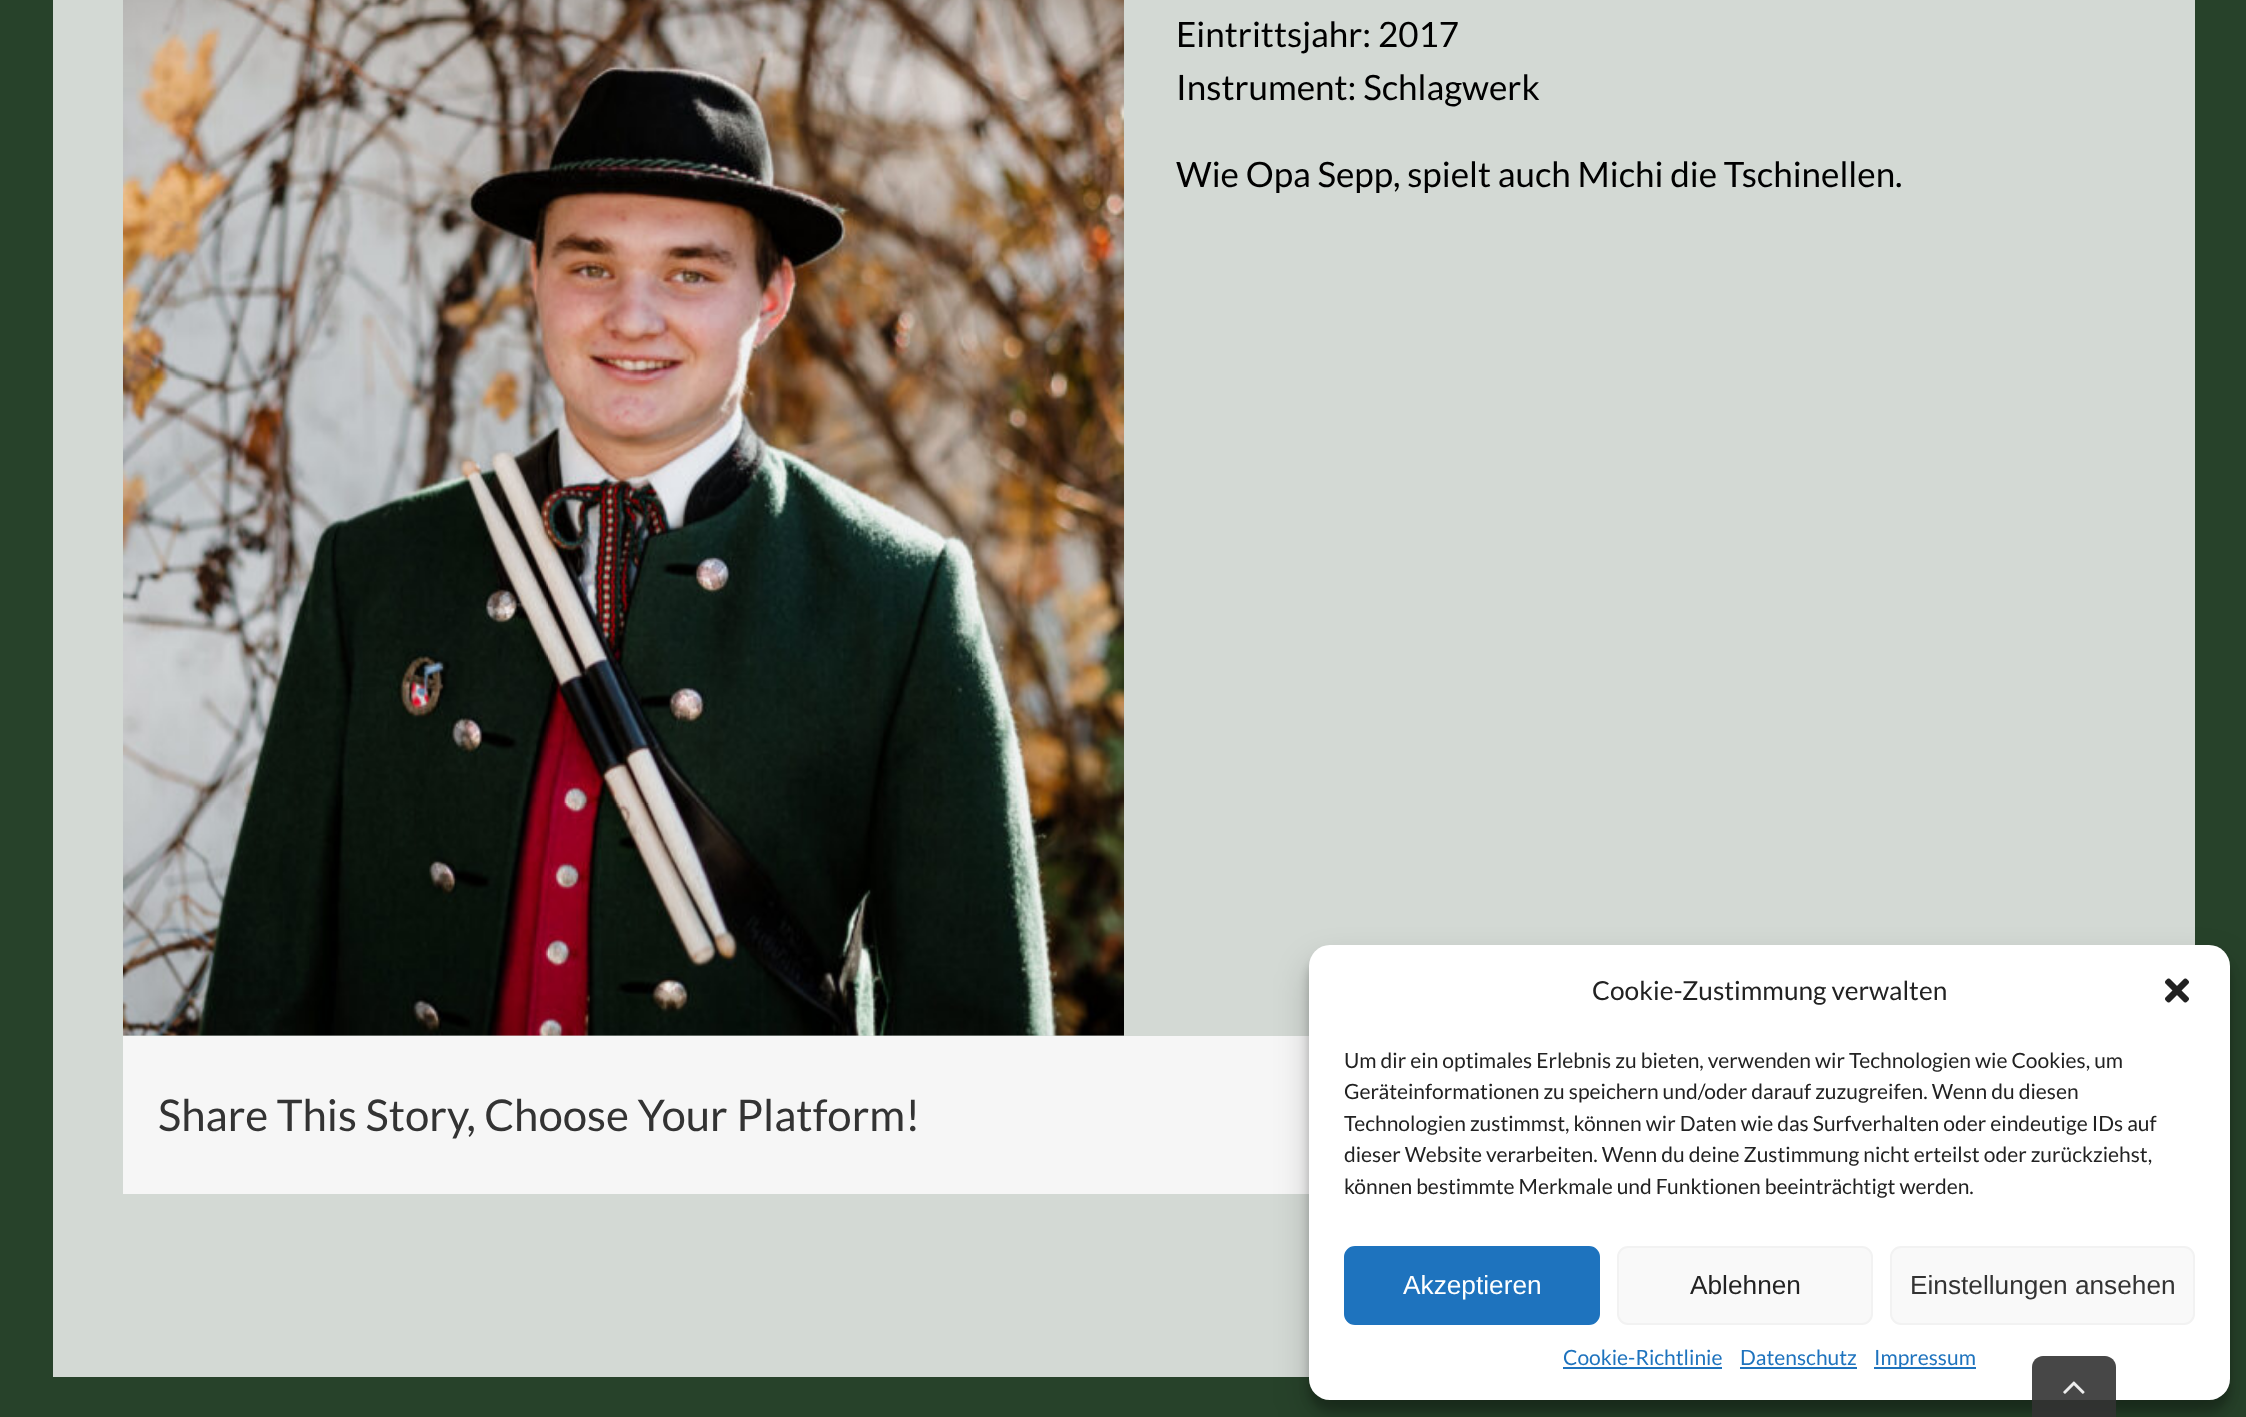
(async () => {
const canvas = document.querySelector("canvas")
canvas.width = 2246
canvas.height = 1417
const c = canvas.getContext("2d")
c.miterLimit = 4
c.fontKerning = "normal"
function T(s,x,y){c.fillText(s,x,y)}
function R(x,y,w,h){c.fillRect(x,y,w,h)}
function Q(x,y,w,h,r){c.beginPath();c.roundRect(x,y,w,h,r);c.fill()}
async function I(src,x,y,w,h){const img=new Image();img.src=src;await img.decode();c.drawImage(img,x,y,w,h)}
let path
c.fillStyle="#27422a"
R(0,0,2246,1417)
c.fillStyle="#d3d9d4"
R(53,0,2142,1377)
await I("1.png",123,0,1001,1036)
c.font="35px Lato"
c.fillStyle="#000"
T("Eintrittsjahr: 2017",1176,47)
T("Instrument: Schlagwerk",1176,100)
T("Wie Opa Sepp, spielt auch Michi die Tschinellen.",1176,187)
c.fillStyle="#f6f6f6"
R(123,1036,1186,158)
c.font="43.75px Lato"
c.fillStyle="#333"
T("Share This Story, Choose Your Platform!",158,1131)
c.fillStyle="#0000003b"
c.filter="blur(5px)"
c.beginPath()
c.roundRect(1309,956,921,455,21)
c.fill()
c.filter="none"
c.fillStyle="#00000030"
c.filter="blur(17.5px)"
c.beginPath()
c.roundRect(1309,963,921,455,21)
c.fill()
c.filter="none"
c.fillStyle="#fff"
Q(1309,945,921,455,21)
c.font="26.25px Lato"
c.fillStyle="#222"
T("Cookie-Zustimmung verwalten",1592,1000)
await I("2.png",2165,978,24,25)
c.font="21px Lato"
T("Um dir ein optimales Erlebnis zu bieten, verwenden wir Technologien wie Cookies, um",1344,1068)
T("Geräteinformationen zu speichern und/oder darauf zuzugreifen. Wenn du diesen",1344,1099)
T("Technologien zustimmst, können wir Daten wie das Surfverhalten oder eindeutige IDs auf",1344,1131)
T("dieser Website verarbeiten. Wenn du deine Zustimmung nicht erteilst oder zurückziehst,",1344,1162)
T("können bestimmte Merkmale und Funktionen beeinträchtigt werden.",1344,1194)
c.fillStyle="#1e73be"
c.beginPath()
c.roundRect(1345,1247,254,77,10)
c.fill()
c.strokeStyle="#1e73be"
c.lineWidth=2
c.stroke()
c.font="26.25px Liberation Sans"
c.fillStyle="#fff"
T("Akzeptieren",1403,1294)
c.fillStyle="#f9f9f9"
c.beginPath()
c.roundRect(1618,1247,254,77,10)
c.fill()
c.strokeStyle="#f2f2f2"
c.stroke()
c.fillStyle="#222"
T("Ablehnen",1690,1294)
c.fillStyle="#f9f9f9"
c.beginPath()
c.roundRect(1891,1247,303,77,10)
c.fill()
c.stroke()
c.fillStyle="#333"
T("Einstellungen ansehen",1910,1294)
c.font="21px Lato"
c.fillStyle="#1e73be"
T("Cookie-Richtlinie",1563,1365)
R(1563,1367,159,2)
T("Datenschutz",1740,1365)
R(1740,1367,117,2)
R(1874,1367,102,2)
T("Impressum",1874,1365)
c.fillStyle="#333333e6"
path = new Path2D("M2043 1356h62c6 0 11 5 11 11v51h-84v-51c0-6 5-11 11-11z")
c.fill(path)
await I("3.png",2063,1381,22,13)
})()
